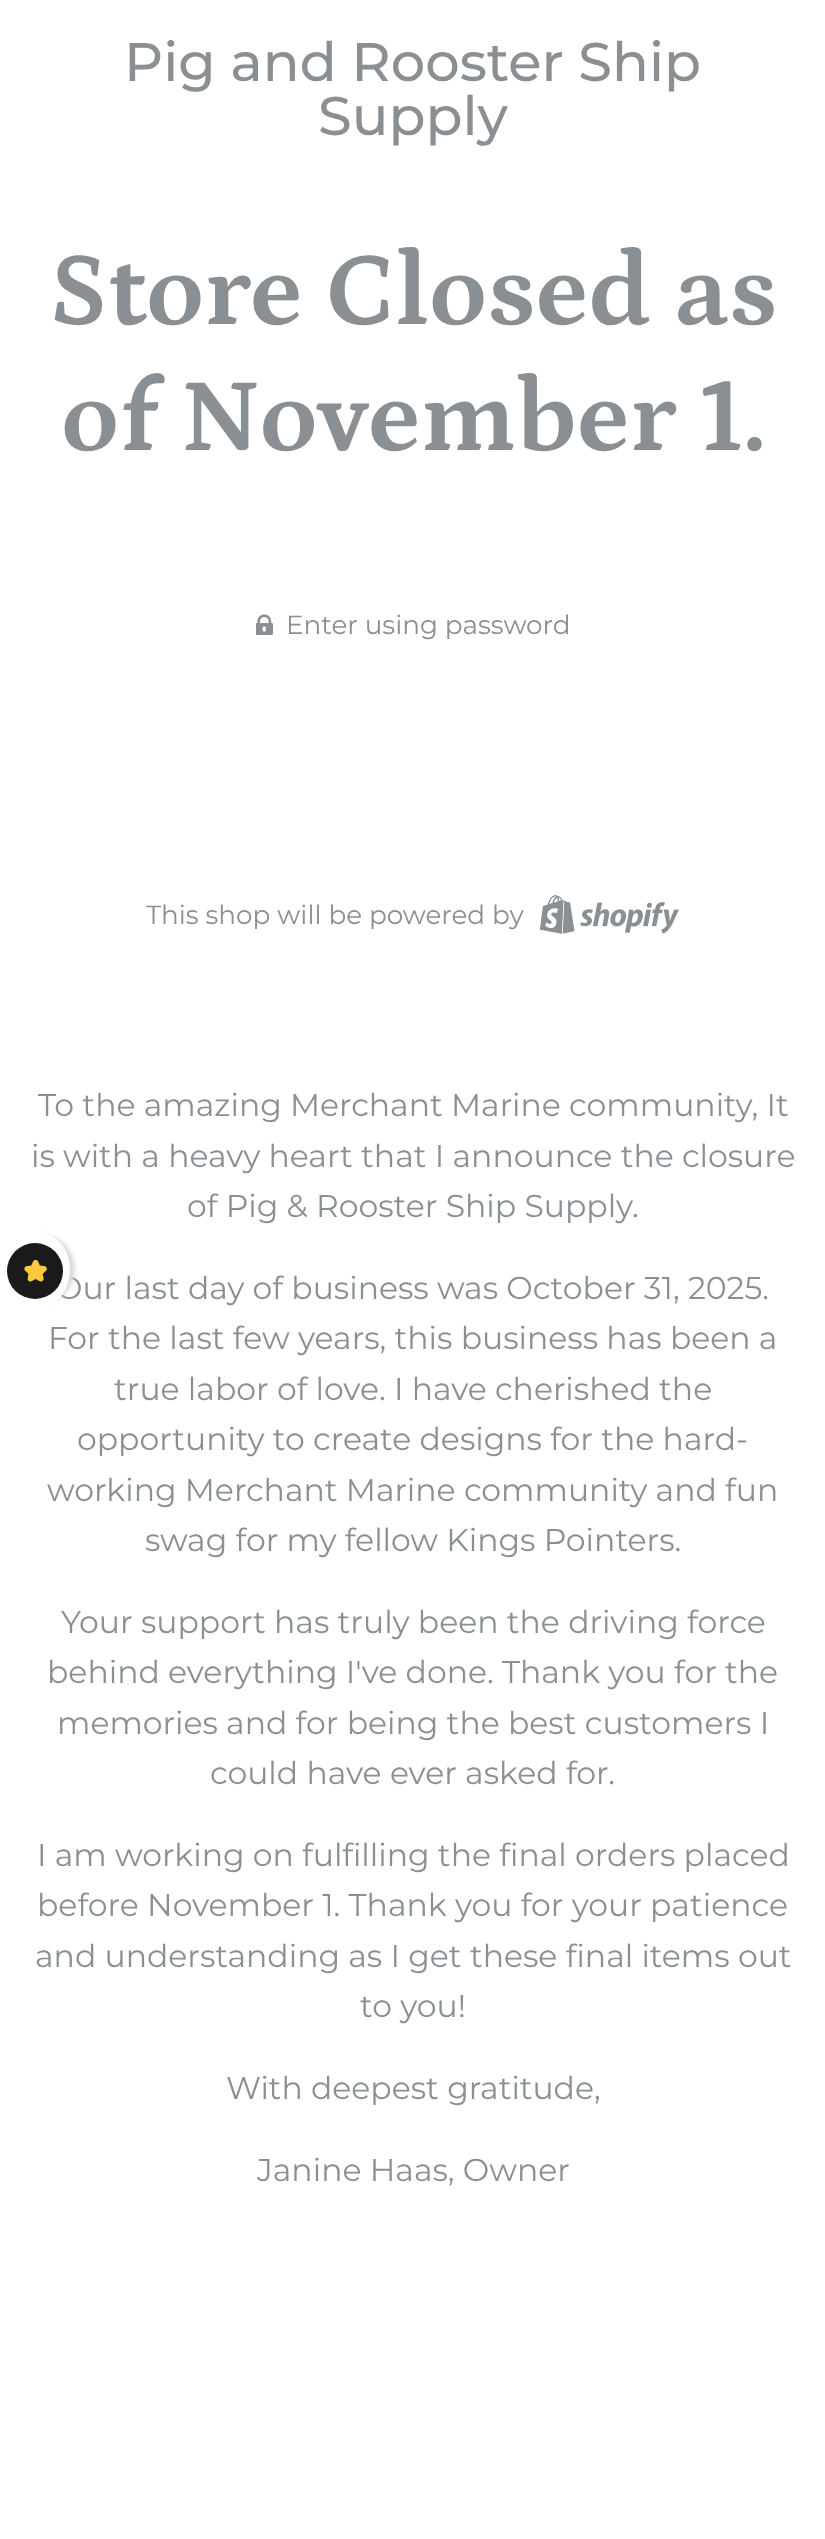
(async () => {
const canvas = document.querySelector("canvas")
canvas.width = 825
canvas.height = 2539
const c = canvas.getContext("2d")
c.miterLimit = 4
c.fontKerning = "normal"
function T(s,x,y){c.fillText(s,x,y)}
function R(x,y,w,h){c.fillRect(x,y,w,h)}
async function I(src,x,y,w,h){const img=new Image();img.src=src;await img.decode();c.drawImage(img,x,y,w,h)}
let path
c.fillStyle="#fff"
R(0,0,825,2539)
c.font="500 54.25px Montserrat"
c.fillStyle="#8a8f93"
T("Pig and Rooster Ship",124,81)
T("Supply",318,135)
c.font="bold 105px Petrona"
T("Store Closed as",49,324)
T("of November 1.",61,450)
await I("1.png",256,614,17,21)
c.font="26.25px Montserrat"
T("Enter using password",286,634)
T("This shop will be powered by",146,924)
await I("2.png",539,895,140,39)
c.font="31.5px Montserrat"
T("To the amazing Merchant Marine community, It",38,1116)
T("is with a heavy heart that I announce the closure",31,1167)
T("of Pig & Rooster Ship Supply.",187,1217)
T("Our last day of business was October 31, 2025.",56,1299)
T("For the last few years, this business has been a",48,1349)
T("true labor of love. I have cherished the",114,1400)
T("opportunity to create designs for the hard-",77,1450)
T("working Merchant Marine community and fun",47,1501)
T("swag for my fellow Kings Pointers.",145,1551)
T("Your support has truly been the driving force",61,1633)
T("behind everything I've done. Thank you for the",47,1683)
T("memories and for being the best customers I",57,1734)
T("could have ever asked for.",210,1784)
T("I am working on fulfilling the final orders placed",37,1866)
T("before November 1. Thank you for your patience",37,1916)
T("and understanding as I get these final items out",35,1967)
T("to you!",360,2017)
T("With deepest gratitude,",226,2099)
T("Janine Haas, Owner",257,2181)
c.fillStyle="#dadada"
c.filter="blur(2px)"
c.beginPath()
c.roundRect(-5,1234,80,70,39)
c.fill()
c.filter="none"
c.fillStyle="#fff"
path = new Path2D("M0 1310v-80c13 0 35-2 46 3c39 16 28 77-14 77z")
c.fill(path)
c.fillStyle="#1a1a1a"
c.beginPath()
c.arc(35,1271,28,0,7)
c.fill()
await I("3.png",24,1259,23,23)
})()
